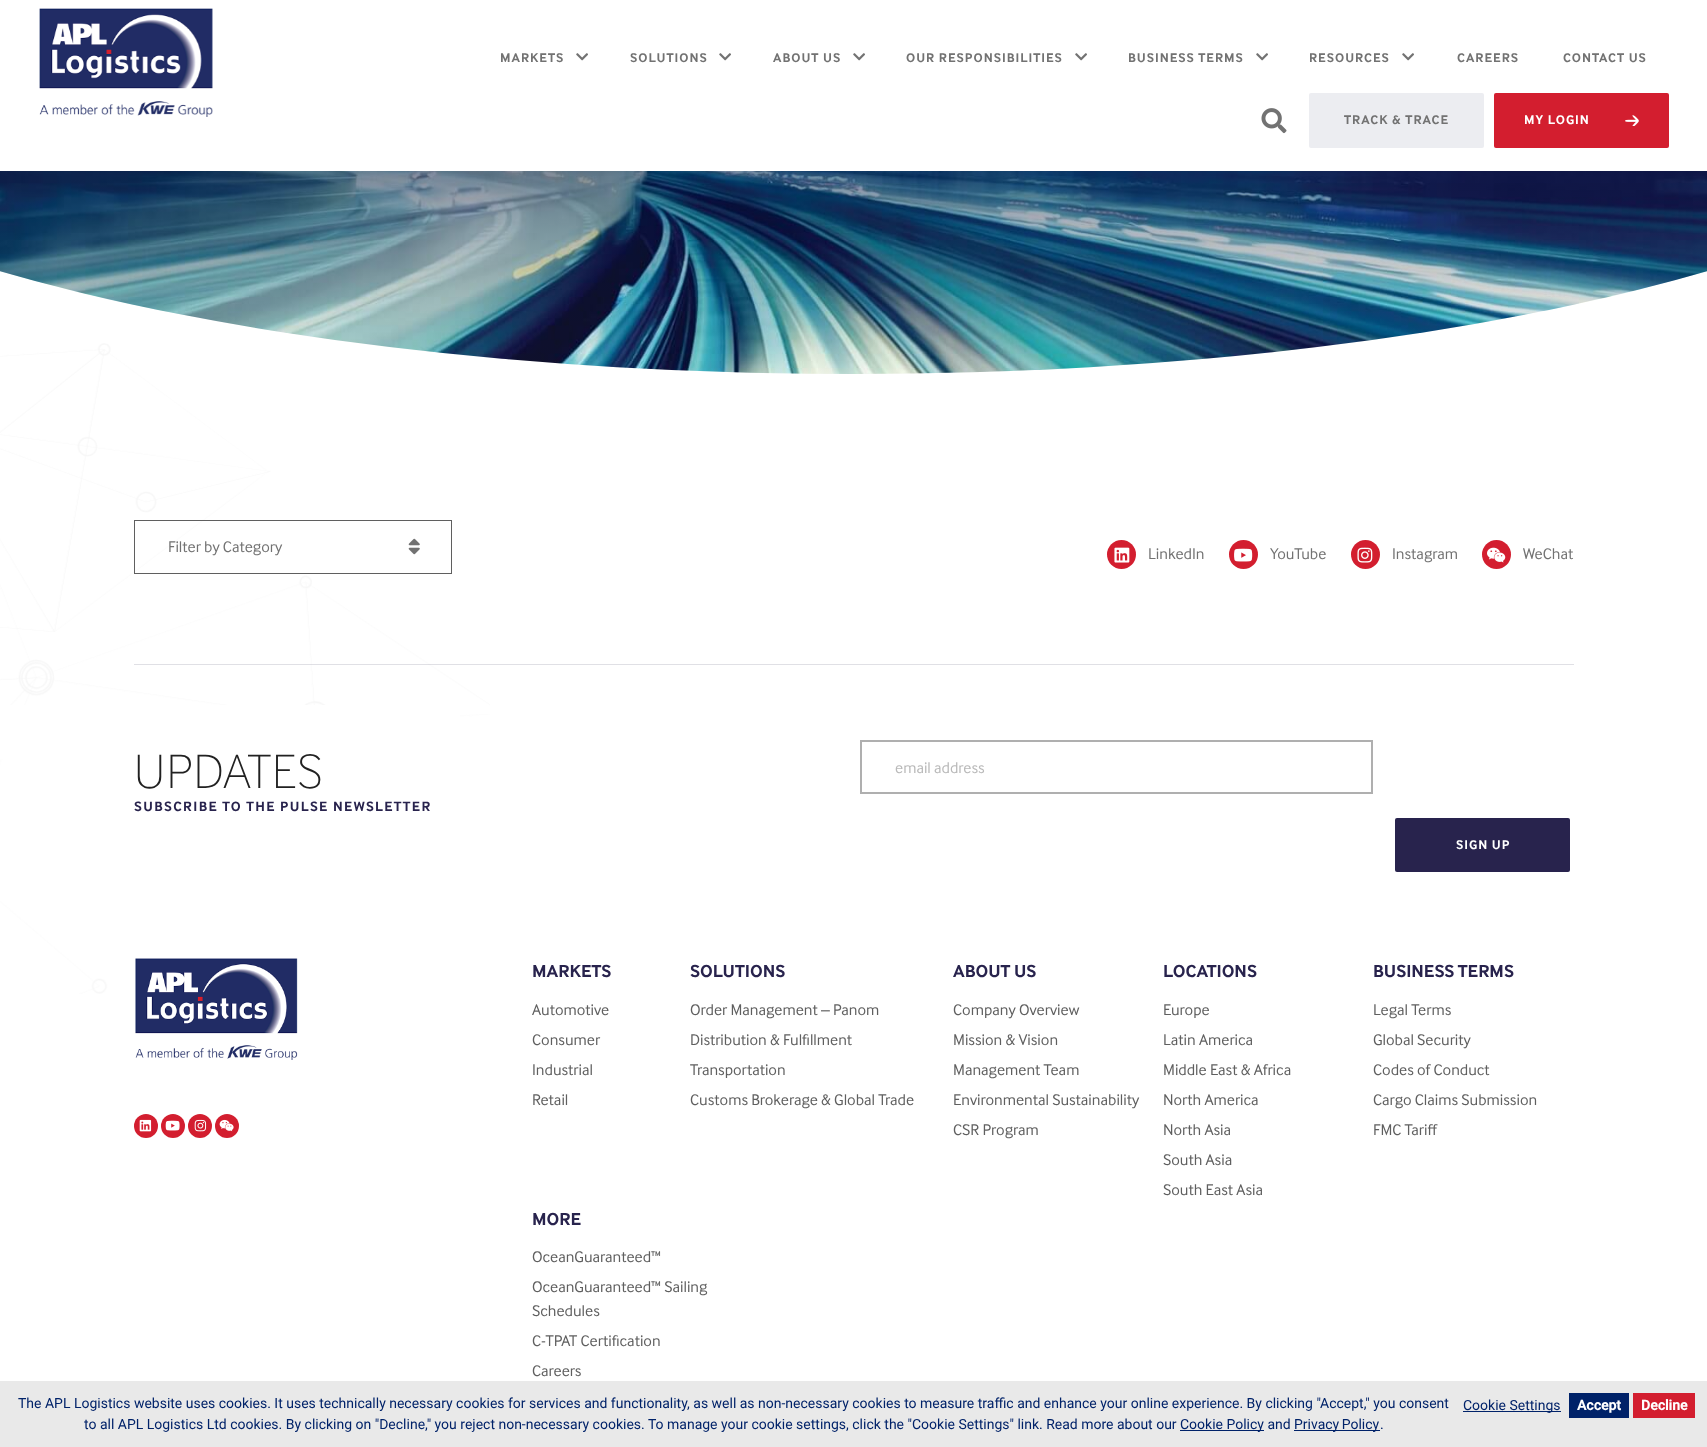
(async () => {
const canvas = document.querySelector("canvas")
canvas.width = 1707
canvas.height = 1447
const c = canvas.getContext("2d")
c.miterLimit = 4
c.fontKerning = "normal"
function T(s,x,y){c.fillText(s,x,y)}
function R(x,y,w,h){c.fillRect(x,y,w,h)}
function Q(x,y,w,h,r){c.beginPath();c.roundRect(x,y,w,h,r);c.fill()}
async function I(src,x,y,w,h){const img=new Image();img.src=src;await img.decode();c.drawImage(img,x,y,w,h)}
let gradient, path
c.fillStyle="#fff"
R(0,0,1707,1447)
c.fillStyle="#e0e0e5"
R(134,664,1440,1)
await I("6.png",0,343,490,651)
await I("1.png",0,171,1707,203)
gradient = c.createLinearGradient(854,-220,854,380)
gradient.addColorStop(0,"#00103a")
gradient.addColorStop(.05,"#00103afa")
gradient.addColorStop(.2,"#00103ae3")
gradient.addColorStop(.35,"#00103acf")
gradient.addColorStop(.54,"#00103ab0")
gradient.addColorStop(.75,"#00103a4d")
gradient.addColorStop(.9,"#00103a1a")
gradient.addColorStop(1,"#00103a00")
c.fillStyle = gradient
path = new Path2D("M0-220h1707v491c-219 64-521 103-853 103c-333 0-635-39-854-103z")
c.fill(path)
c.fillStyle="#fff"
R(0,0,1707,171)
await I("2.png",39,8,174,109)
c.letterSpacing="1px"
c.font="bold 13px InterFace"
c.fillStyle="#727272"
T("MARKETS",500,62)
await I("3.png",576,53,12,8)
T("SOLUTIONS",630,62)
await I("3.png",719,53,12,8)
T("ABOUT US",773,62)
await I("3.png",853,53,12,8)
T("OUR RESPONSIBILITIES",906,62)
await I("3.png",1075,53,12,8)
T("BUSINESS TERMS",1128,62)
await I("3.png",1256,53,12,8)
T("RESOURCES",1309,62)
await I("3.png",1402,53,12,8)
T("CAREERS",1457,62)
T("CONTACT US",1563,62)
await I("4.png",1261,108,26,26)
c.fillStyle="#ecedf1"
Q(1309,93,175,55,2)
c.fillStyle="#727272"
T("TRACK & TRACE",1344,124)
c.fillStyle="#d31e2f"
Q(1494,93,175,55,2)
c.fillStyle="#fff"
T("MY LOGIN",1524,124)
await I("5.png",1625,115,14,11)
c.strokeStyle="#5f5f5f"
c.strokeRect(134.5,520.5,317,53)
c.letterSpacing="0px"
c.font="16px InterFace"
c.fillStyle="#727272"
T("Filter by Category",168,552)
await I("7.png",408,538,12,17)
c.fillStyle="#d31e2f"
c.beginPath()
c.arc(1121.5,554.5,14.5,0,7)
c.fill()
await I("8.png",1114,547,16,16)
c.fillStyle="#727272"
T("LinkedIn",1148,559)
c.fillStyle="#d31e2f"
c.beginPath()
c.arc(1243.5,554.5,14.5,0,7)
c.fill()
await I("9.png",1234,548,19,14)
c.fillStyle="#727272"
T("YouTube",1270,559)
c.fillStyle="#d31e2f"
c.beginPath()
c.arc(1365.5,554.5,14.5,0,7)
c.fill()
await I("10.png",1357,547,16,16)
c.fillStyle="#727272"
T("Instagram",1392,559)
c.fillStyle="#d31e2f"
c.beginPath()
c.arc(1496.5,554.5,14.5,0,7)
c.fill()
await I("11.png",1487,547,19,16)
c.fillStyle="#727272"
T("WeChat",1523,559)
c.fillStyle="#fff"
R(0,705,460,54)
c.letterSpacing="1.5px"
c.font="100 50px InterFace"
c.fillStyle="#212121"
T("UPDATES",134,788)
c.letterSpacing="1.4px"
c.font="bold 14px InterFace"
c.fillStyle="#28234d"
T("SUBSCRIBE TO THE PULSE NEWSLETTER",134,811)
c.strokeStyle="#afafaf"
c.lineWidth=2
c.strokeRect(861,741,511,52)
c.letterSpacing="0px"
c.font="16px InterFace"
c.fillStyle="#b9b9b9"
T("email address",895,773)
c.fillStyle="#28234d"
Q(1395,818,175,54,2)
c.letterSpacing="1px"
c.font="bold 13px InterFace"
c.fillStyle="#fff"
T("SIGN UP",1456,849)
await I("12.png",135,958,163,102)
c.fillStyle="#d31e2f"
c.beginPath()
c.arc(146,1126,12,0,7)
c.fill()
await I("13.png",139,1119,13,13)
c.beginPath()
c.arc(173,1126,12,0,7)
c.fill()
await I("14.png",165,1120,15,11)
c.beginPath()
c.arc(200,1126,12,0,7)
c.fill()
await I("15.png",194,1119,13,13)
c.beginPath()
c.arc(227,1126,12,0,7)
c.fill()
await I("16.png",219,1119,15,13)
c.letterSpacing="0px"
c.font="bold 18px InterFace"
c.fillStyle="#28234d"
T("MARKETS",532,977)
c.font="16px InterFace"
c.fillStyle="#5f5f5f"
T("Automotive",532,1015)
T("Consumer",532,1045)
T("Industrial",532,1075)
T("Retail",532,1105)
c.font="bold 18px InterFace"
c.fillStyle="#28234d"
T("SOLUTIONS",690,977)
c.font="16px InterFace"
c.fillStyle="#5f5f5f"
T("Order Management – Panom",690,1015)
T("Distribution & Fulfillment",690,1045)
T("Transportation",690,1075)
T("Customs Brokerage & Global Trade",690,1105)
c.font="bold 18px InterFace"
c.fillStyle="#28234d"
T("ABOUT US",953,977)
c.font="16px InterFace"
c.fillStyle="#5f5f5f"
T("Company Overview",953,1015)
T("Mission & Vision",953,1045)
T("Management Team",953,1075)
T("Environmental Sustainability",953,1105)
T("CSR Program",953,1135)
c.font="bold 18px InterFace"
c.fillStyle="#28234d"
T("LOCATIONS",1163,977)
c.font="16px InterFace"
c.fillStyle="#5f5f5f"
T("Europe",1163,1015)
T("Latin America",1163,1045)
T("Middle East & Africa",1163,1075)
T("North America",1163,1105)
T("North Asia",1163,1135)
T("South Asia",1163,1165)
T("South East Asia",1163,1195)
c.font="bold 18px InterFace"
c.fillStyle="#28234d"
T("BUSINESS TERMS",1373,977)
c.font="16px InterFace"
c.fillStyle="#5f5f5f"
T("Legal Terms",1373,1015)
T("Global Security",1373,1045)
T("Codes of Conduct",1373,1075)
T("Cargo Claims Submission",1373,1105)
T("FMC Tariff",1373,1135)
c.font="bold 18px InterFace"
c.fillStyle="#28234d"
T("MORE",532,1225)
c.font="16px InterFace"
c.fillStyle="#5f5f5f"
T("OceanGuaranteed™",532,1262)
T("OceanGuaranteed™ Sailing",532,1292)
T("Schedules",532,1316)
T("C-TPAT Certification",532,1346)
T("Careers",532,1376)
c.fillStyle="#e9e9e9"
R(0,1381,1707,66)
c.font="14px Roboto"
c.fillStyle="#002269"
T("The APL Logistics website uses cookies. It uses technically necessary cookies for services and functionality, as well as non-necessary cookies to measure traffic and enhance your online experience. By clicking \"Accept,\" you consent",18,1408)
T("to all APL Logistics Ltd cookies. By clicking on \"Decline,\" you reject non-necessary cookies. To manage your cookie settings, click the \"Cookie Settings\" link. Read more about our",84,1429)
R(1180,1430,84,1)
T("Cookie Policy and",1180,1429)
R(1294,1430,86,1)
c.wordSpacing="-1px"
T("Privacy Policy",1294,1429)
c.wordSpacing="0px"
T(".",1380,1429)
R(1463,1411,98,1)
T("Cookie Settings",1463,1410)
R(1569,1393,60,25)
c.font="bold 14px Roboto"
c.fillStyle="#fff"
T("Accept",1577,1410)
c.fillStyle="#d31e2f"
R(1633,1393,62,25)
c.fillStyle="#fff"
T("Decline",1641,1410)
})()
